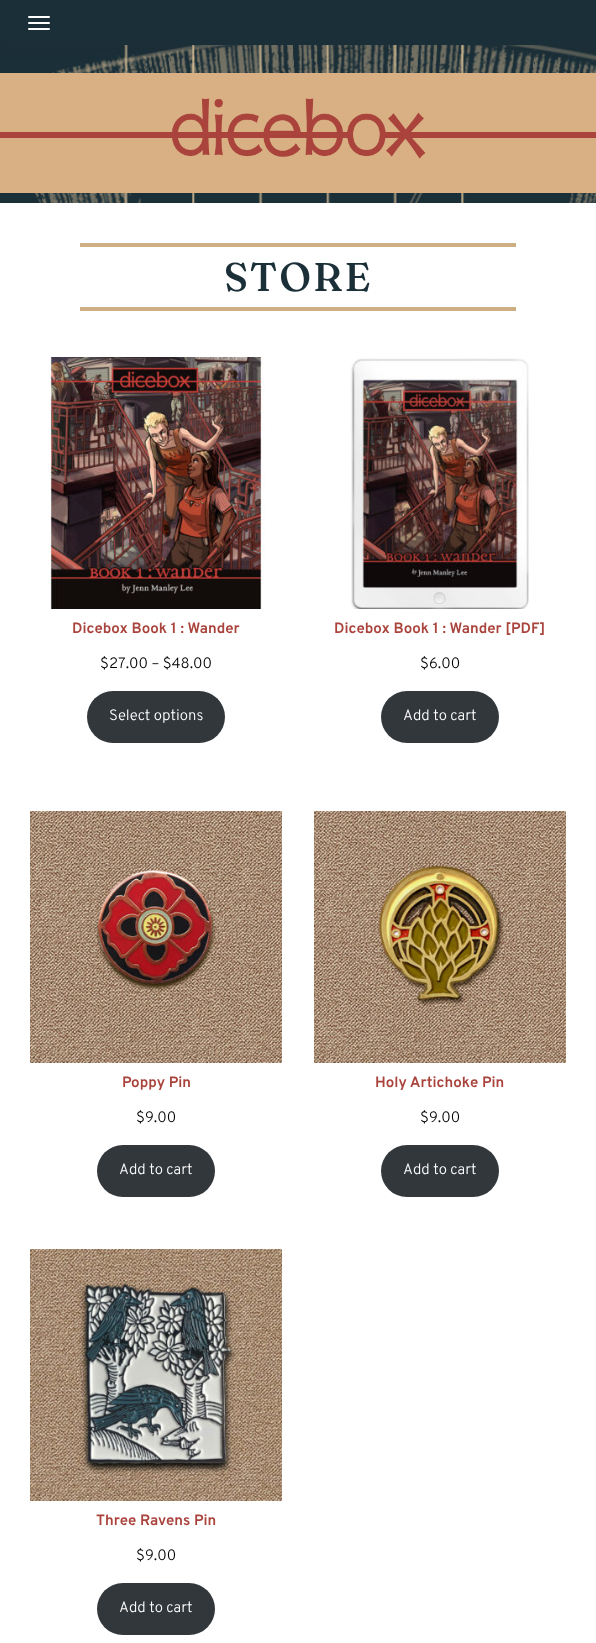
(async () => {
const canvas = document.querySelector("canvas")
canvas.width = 596
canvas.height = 1643
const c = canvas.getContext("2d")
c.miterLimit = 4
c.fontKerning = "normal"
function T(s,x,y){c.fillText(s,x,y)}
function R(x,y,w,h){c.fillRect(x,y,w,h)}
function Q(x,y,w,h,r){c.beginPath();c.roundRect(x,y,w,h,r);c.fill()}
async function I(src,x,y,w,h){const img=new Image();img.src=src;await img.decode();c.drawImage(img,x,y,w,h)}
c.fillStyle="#fff"
R(0,0,596,1643)
await I("1.png",0,45,596,158)
c.fillStyle="#32323214"
c.filter="blur(5.5px)"
c.beginPath()
c.rect(0,5,596,45)
c.fill()
c.filter="none"
c.fillStyle="#1b2f38"
R(0,0,596,45)
c.fillStyle="#fff"
Q(28,16,22,2,1)
Q(28,22,22,2,1)
Q(28,28,22,2,1)
c.fillStyle="#d8b083"
R(0,73,596,120)
c.fillStyle="#a9433c"
R(0,132,596,6)
await I("2.png",172,98,254,61)
c.fillStyle="#cdaf83"
R(80,243,436,4)
R(80,307,436,4)
c.letterSpacing="2px"
c.font="500 40px Fraunces"
c.fillStyle="#1b2f38"
T("STORE",224,291)
await I("3.png",50,357,215,252)
c.letterSpacing="0px"
c.font="bold 15px Overpass"
c.fillStyle="#a9433c"
T("Dicebox Book 1 : Wander",72,633)
c.font="300 15px Overpass"
c.fillStyle="#000"
T("$27.00 – $48.00",100,668)
c.fillStyle="#32373c"
Q(87,691,138,52,26)
c.fillStyle="#fff"
T("Select options",109,720)
await I("4.png",350,358,179,251)
c.font="bold 15px Overpass"
c.fillStyle="#a9433c"
T("Dicebox Book 1 : Wander [PDF]",334,633)
c.font="300 15px Overpass"
c.fillStyle="#000"
T("$6.00",420,668)
c.fillStyle="#32373c"
Q(381,691,118,52,26)
c.fillStyle="#fff"
T("Add to cart",403,720)
await I("5.png",30,811,252,252)
c.font="bold 15px Overpass"
c.fillStyle="#a9433c"
T("Poppy Pin",122,1087)
c.font="300 15px Overpass"
c.fillStyle="#000"
T("$9.00",136,1122)
c.fillStyle="#32373c"
Q(97,1145,118,52,26)
c.fillStyle="#fff"
T("Add to cart",119,1174)
await I("6.png",314,811,252,252)
c.font="bold 15px Overpass"
c.fillStyle="#a9433c"
T("Holy Artichoke Pin",375,1087)
c.font="300 15px Overpass"
c.fillStyle="#000"
T("$9.00",420,1122)
c.fillStyle="#32373c"
Q(381,1145,118,52,26)
c.fillStyle="#fff"
T("Add to cart",403,1174)
await I("7.png",30,1249,252,252)
c.font="bold 15px Overpass"
c.fillStyle="#a9433c"
T("Three Ravens Pin",96,1525)
c.font="300 15px Overpass"
c.fillStyle="#000"
T("$9.00",136,1560)
c.fillStyle="#32373c"
Q(97,1583,118,52,26)
c.fillStyle="#fff"
T("Add to cart",119,1612)
})()
